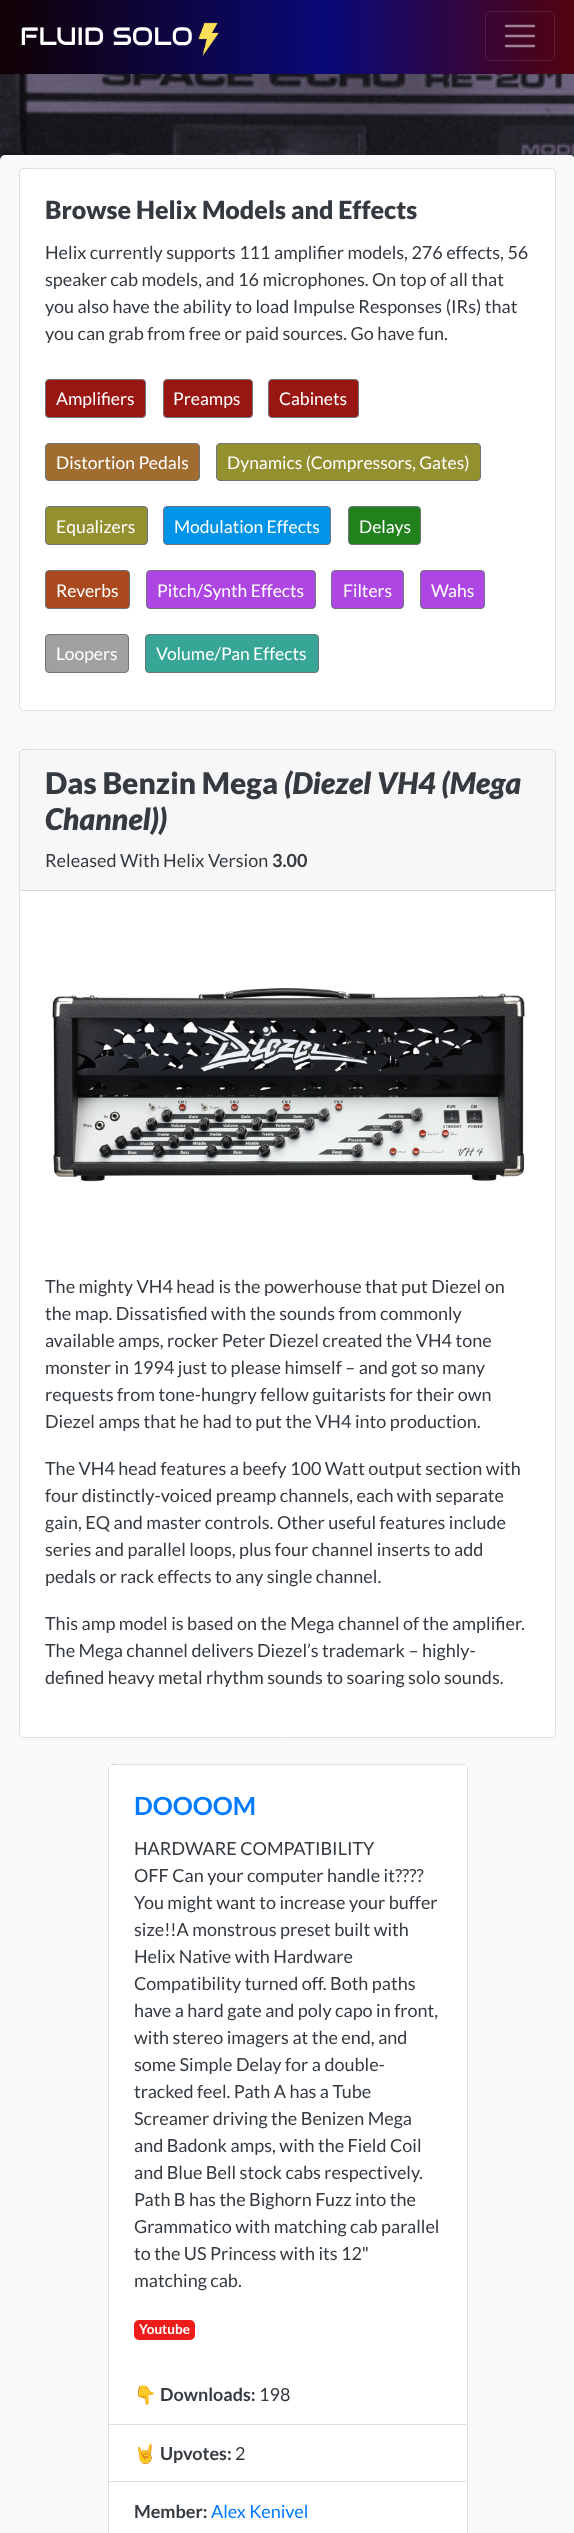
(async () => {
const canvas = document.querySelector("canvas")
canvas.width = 574
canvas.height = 2533
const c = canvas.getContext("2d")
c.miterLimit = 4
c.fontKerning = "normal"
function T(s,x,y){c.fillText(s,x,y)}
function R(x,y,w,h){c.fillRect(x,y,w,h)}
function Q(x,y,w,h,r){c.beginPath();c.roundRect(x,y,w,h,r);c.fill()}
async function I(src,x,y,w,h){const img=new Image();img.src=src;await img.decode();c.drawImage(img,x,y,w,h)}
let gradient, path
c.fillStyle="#fff"
R(0,0,574,2533)
await I("1.png",0,74,574,86)
gradient = c.createLinearGradient(0,37,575,37)
gradient.addColorStop(0,"#110103")
gradient.addColorStop(.57,"#090979")
gradient.addColorStop(1,"#53030e")
c.fillStyle = gradient
R(0,0,574,74)
c.font="25px Audiowide"
c.fillStyle="#fff"
T("FLUID SOLO",20,45)
await I("2.png",198,22,21,35)
c.beginPath()
c.roundRect(485.5,11.5,69,49,4.5)
c.strokeStyle="#ffffff1a"
c.stroke()
path = new Path2D("M506 26h28m-28 10h28m-28 10h28")
c.strokeStyle="#ffffff80"
c.lineWidth=2.5
c.lineCap="round"
c.stroke(path)
c.fillStyle="#f8f9fa"
Q(0,155,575,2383,5)
c.fillStyle="#fff"
Q(19,168,537,543,5)
c.beginPath()
c.roundRect(19.5,168.5,536,542,4.5)
c.strokeStyle="#0000001f"
c.lineWidth=1
c.stroke()
c.font="900 25px Lato"
c.fillStyle="#343a40"
T("Browse Helix Models and Effects",45,219)
c.font="18px Lato"
T("Helix currently supports 111 amplifier models, 276 effects, 56",45,259)
T("speaker cab models, and 16 microphones. On top of all that",45,286)
T("you also have the ability to load Impulse Responses (IRs) that",45,313)
T("you can grab from free or paid sources. Go have fun.",45,340)
c.fillStyle="#9a1612"
c.beginPath()
c.roundRect(45.5,379.5,100,38,3.5)
c.fill()
c.strokeStyle="#6c757d"
c.stroke()
c.font="17.5px Lato"
c.fillStyle="#fff"
T("Amplifiers",56,405)
c.fillStyle="#9a1612"
c.beginPath()
c.roundRect(163.5,379.5,89,38,3.5)
c.fill()
c.stroke()
c.fillStyle="#fff"
T("Preamps",173,405)
c.fillStyle="#9a1612"
c.beginPath()
c.roundRect(268.5,379.5,90,38,3.5)
c.fill()
c.stroke()
c.fillStyle="#fff"
T("Cabinets",279,405)
c.fillStyle="#a06c30"
c.beginPath()
c.roundRect(45.5,443.5,154,37,3.5)
c.fill()
c.stroke()
c.fillStyle="#fff"
T("Distortion Pedals",56,469)
c.fillStyle="#93902f"
c.beginPath()
c.roundRect(216.5,443.5,264,37,3.5)
c.fill()
c.stroke()
c.fillStyle="#fff"
T("Dynamics (Compressors, Gates)",227,469)
c.fillStyle="#93902f"
c.beginPath()
c.roundRect(45.5,506.5,102,38,3.5)
c.fill()
c.stroke()
c.fillStyle="#fff"
T("Equalizers",56,533)
c.fillStyle="#0094e9"
c.beginPath()
c.roundRect(163.5,506.5,167,38,3.5)
c.fill()
c.stroke()
c.fillStyle="#fff"
T("Modulation Effects",174,533)
c.fillStyle="#21811d"
c.beginPath()
c.roundRect(348.5,506.5,72,38,3.5)
c.fill()
c.stroke()
c.fillStyle="#fff"
T("Delays",359,533)
c.fillStyle="#aa491e"
c.beginPath()
c.roundRect(45.5,570.5,84,38,3.5)
c.fill()
c.stroke()
c.fillStyle="#fff"
T("Reverbs",56,597)
c.fillStyle="#ad46e2"
c.beginPath()
c.roundRect(146.5,570.5,169,38,3.5)
c.fill()
c.stroke()
c.fillStyle="#fff"
T("Pitch/Synth Effects",157,597)
c.fillStyle="#ad46e2"
c.beginPath()
c.roundRect(331.5,570.5,72,38,3.5)
c.fill()
c.stroke()
c.fillStyle="#fff"
T("Filters",343,597)
c.fillStyle="#ad46e2"
c.beginPath()
c.roundRect(420.5,570.5,64,38,3.5)
c.fill()
c.stroke()
c.fillStyle="#fff"
T("Wahs",431,597)
c.fillStyle="#a0a0a0"
c.beginPath()
c.roundRect(45.5,634.5,83,38,3.5)
c.fill()
c.stroke()
c.fillStyle="#fff"
T("Loopers",56,660)
c.fillStyle="#38a696"
c.beginPath()
c.roundRect(145.5,634.5,173,38,3.5)
c.fill()
c.stroke()
c.fillStyle="#fff"
T("Volume/Pan Effects",156,660)
Q(19,749,537,989,5)
c.beginPath()
c.roundRect(19.5,749.5,536,988,4.5)
c.strokeStyle="#0000001f"
c.stroke()
c.fillStyle="#00000008"
R(20,750,535,140)
c.fillStyle="#d8d8d8"
R(20,890,535,1)
c.font="900 30px Lato"
c.fillStyle="#343a40"
T("Das Benzin Mega",45,794)
c.font="italic 900 30px Lato"
T("(Diezel VH4 (Mega",284,794)
T("Channel))",45,830)
c.font="18px Lato"
T("Released With Helix Version",45,867)
c.font="bold 18px Lato"
T("3.00",272,867)
await I("3.png",52,988,473,194)
c.font="18px Lato"
T("The mighty VH4 head is the powerhouse that put Diezel on",45,1293)
T("the map. Dissatisfied with the sounds from commonly",45,1320)
T("available amps, rocker Peter Diezel created the VH4 tone",45,1347)
T("monster in 1994 just to please himself – and got so many",45,1374)
T("requests from tone-hungry fellow guitarists for their own",45,1401)
T("Diezel amps that he had to put the VH4 into production.",45,1428)
T("The VH4 head features a beefy 100 Watt output section with",45,1475)
T("four distinctly-voiced preamp channels, each with separate",45,1502)
T("gain, EQ and master controls. Other useful features include",45,1529)
T("series and parallel loops, plus four channel inserts to add",45,1556)
T("pedals or rack effects to any single channel.",45,1583)
T("This amp model is based on the Mega channel of the amplifier.",45,1630)
T("The Mega channel delivers Diezel’s trademark – highly-",45,1657)
T("defined heavy metal rhythm sounds to soaring solo sounds.",45,1684)
c.fillStyle="#fff"
Q(108,1764,360,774,5)
c.beginPath()
c.roundRect(108.5,1764.5,359,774,4.5)
c.stroke()
c.font="bold 25px Lato"
c.fillStyle="#007bff"
T("DOOOOM",134,1815)
c.font="18px Lato"
c.fillStyle="#343a40"
T("HARDWARE COMPATIBILITY",134,1855)
T("OFF Can your computer handle it????",134,1882)
T("You might want to increase your buffer",134,1909)
T("size!!A monstrous preset built with",134,1936)
T("Helix Native with Hardware",134,1963)
T("Compatibility turned off. Both paths",134,1990)
T("have a hard gate and poly capo in front,",134,2017)
T("with stereo imagers at the end, and",134,2044)
T("some Simple Delay for a double-",134,2071)
T("tracked feel. Path A has a Tube",134,2098)
T("Screamer driving the Benizen Mega",134,2125)
T("and Badonk amps, with the Field Coil",134,2152)
T("and Blue Bell stock cabs respectively.",134,2179)
T("Path B has the Bighorn Fuzz into the",134,2206)
T("Grammatico with matching cab parallel",134,2233)
T("to the US Princess with its 12\"",134,2260)
T("matching cab.",134,2287)
c.fillStyle="#ee1c1b"
Q(134,2320,61,20,5)
c.font="bold 13.5px Lato"
c.fillStyle="#fff"
T("Youtube",139,2334)
c.fillStyle="#dfdfdf"
R(109,2424,357,1)
c.font="18px Noto Color Emoji"
c.fillStyle="#343a40"
T("👇",134,2401)
c.font="bold 18px Lato"
T("Downloads:",160,2401)
c.font="18px Lato"
T("198",259,2401)
c.fillStyle="#dfdfdf"
R(109,2481,357,1)
c.font="18px Noto Color Emoji"
c.fillStyle="#343a40"
T("🤘",134,2460)
c.font="bold 18px Lato"
T("Upvotes:",160,2460)
c.font="18px Lato"
T("2",235,2460)
c.font="bold 18px Lato"
T("Member:",134,2518)
c.font="18px Lato"
c.fillStyle="#007bff"
T("Alex Kenivel",211,2518)
})()
